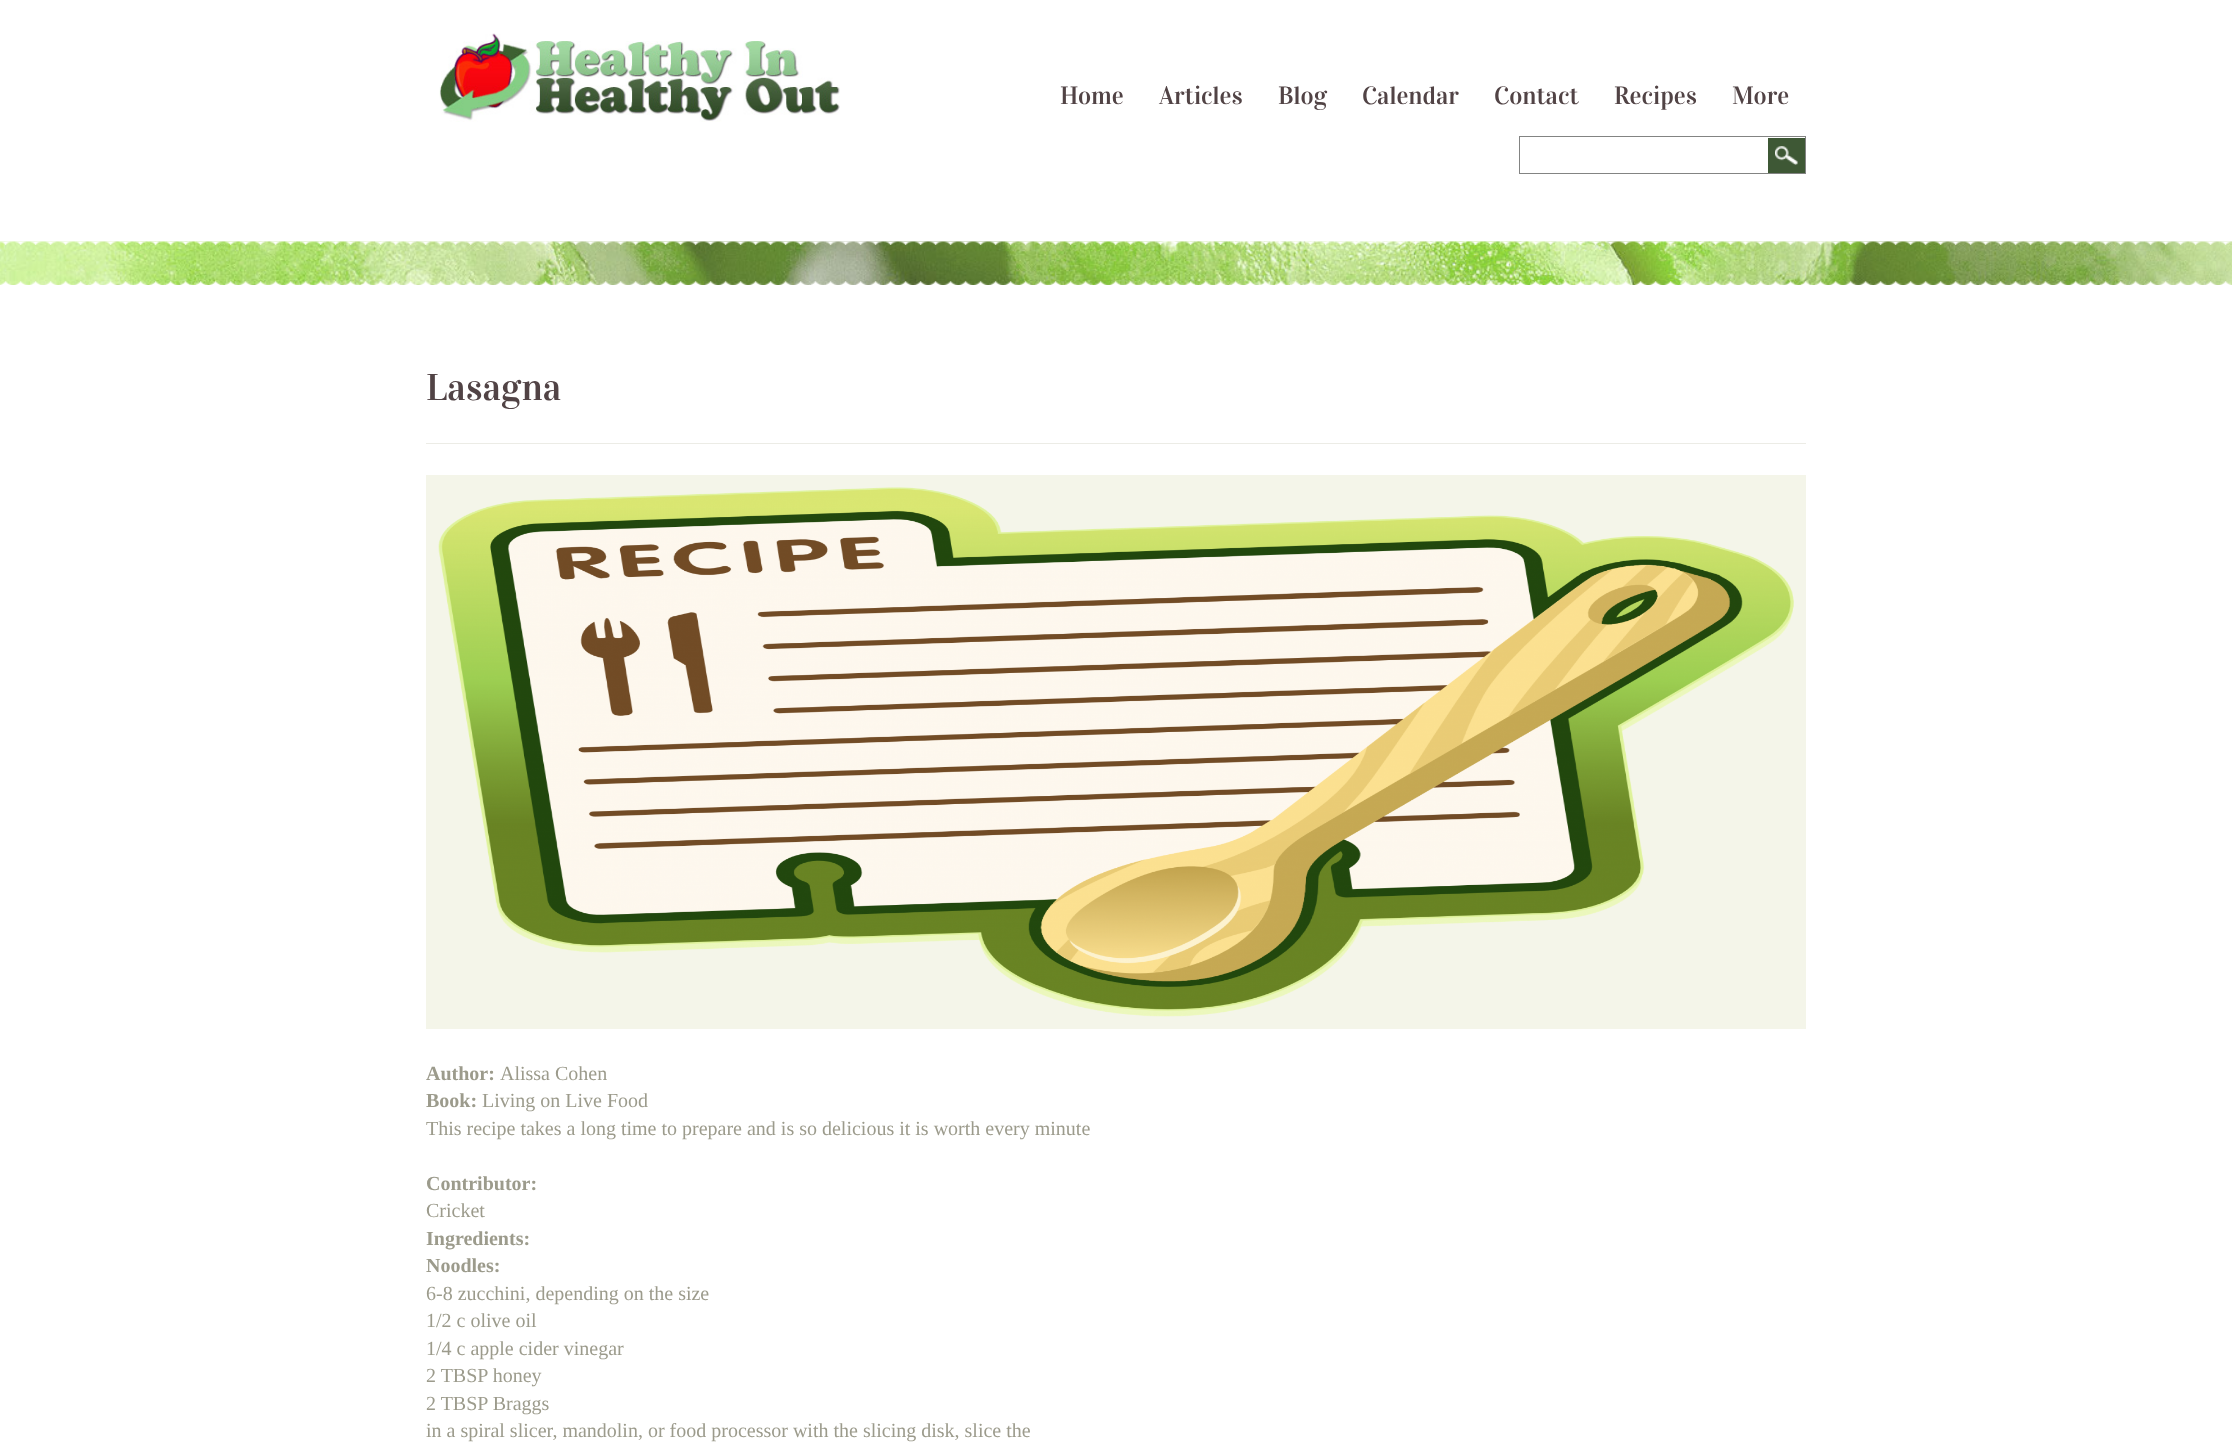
(async () => {
const canvas = document.querySelector("canvas")
canvas.width = 2232
canvas.height = 1450
const c = canvas.getContext("2d")
c.miterLimit = 4
c.fontKerning = "normal"
function T(s,x,y){c.fillText(s,x,y)}
function R(x,y,w,h){c.fillRect(x,y,w,h)}
async function I(src,x,y,w,h){const img=new Image();img.src=src;await img.decode();c.drawImage(img,x,y,w,h)}
c.fillStyle="#fff"
R(0,0,2232,1450)
await I("1.png",439,33,401,89)
c.font="25px Vidaloka"
c.fillStyle="#514345"
T("Home",1060,104)
T("Articles",1159,104)
T("Blog",1278,104)
T("Calendar",1362,104)
T("Contact",1494,104)
T("Recipes",1614,104)
T("More",1732,104)
c.strokeStyle="#838483"
c.strokeRect(1519.5,136.5,286,37)
c.fillStyle="#3e5835"
R(1768,138,37,35)
await I("2.png",1775,146,23,19)
await I("3.png",0,241,2232,44)
await I("4.png",0,241,2232,4)
await I("5.png",0,281,2232,4)
c.fillStyle="#ecece6"
R(426,443,1380,1)
c.font="37.5px Vidaloka"
c.fillStyle="#514345"
T("Lasagna",426,400)
c.fillStyle="#f4f5e9"
R(426,475,1380,554)
await I("6.png",438,487,1356,530)
c.font="bold 20px Liberation Serif"
c.fillStyle="#9c9b8c"
T("Author:",426,1080)
c.font="20px Liberation Serif"
T("Alissa Cohen",500,1080)
c.font="bold 20px Liberation Serif"
T("Book:",426,1107)
c.font="20px Liberation Serif"
T("Living on Live Food",482,1107)
T("This recipe takes a long time to prepare and is so delicious it is worth every minute",426,1135)
c.font="bold 20px Liberation Serif"
T("Contributor:",426,1190)
c.font="20px Liberation Serif"
T("Cricket",426,1217)
c.font="bold 20px Liberation Serif"
T("Ingredients:",426,1245)
T("Noodles:",426,1272)
c.font="20px Liberation Serif"
T("6-8 zucchini, depending on the size",426,1300)
T("1/2 c olive oil",426,1327)
T("1/4 c apple cider vinegar",426,1355)
T("2 TBSP honey",426,1382)
T("2 TBSP Braggs",426,1410)
T("in a spiral slicer, mandolin, or food processor with the slicing disk, slice the",426,1437)
})()
